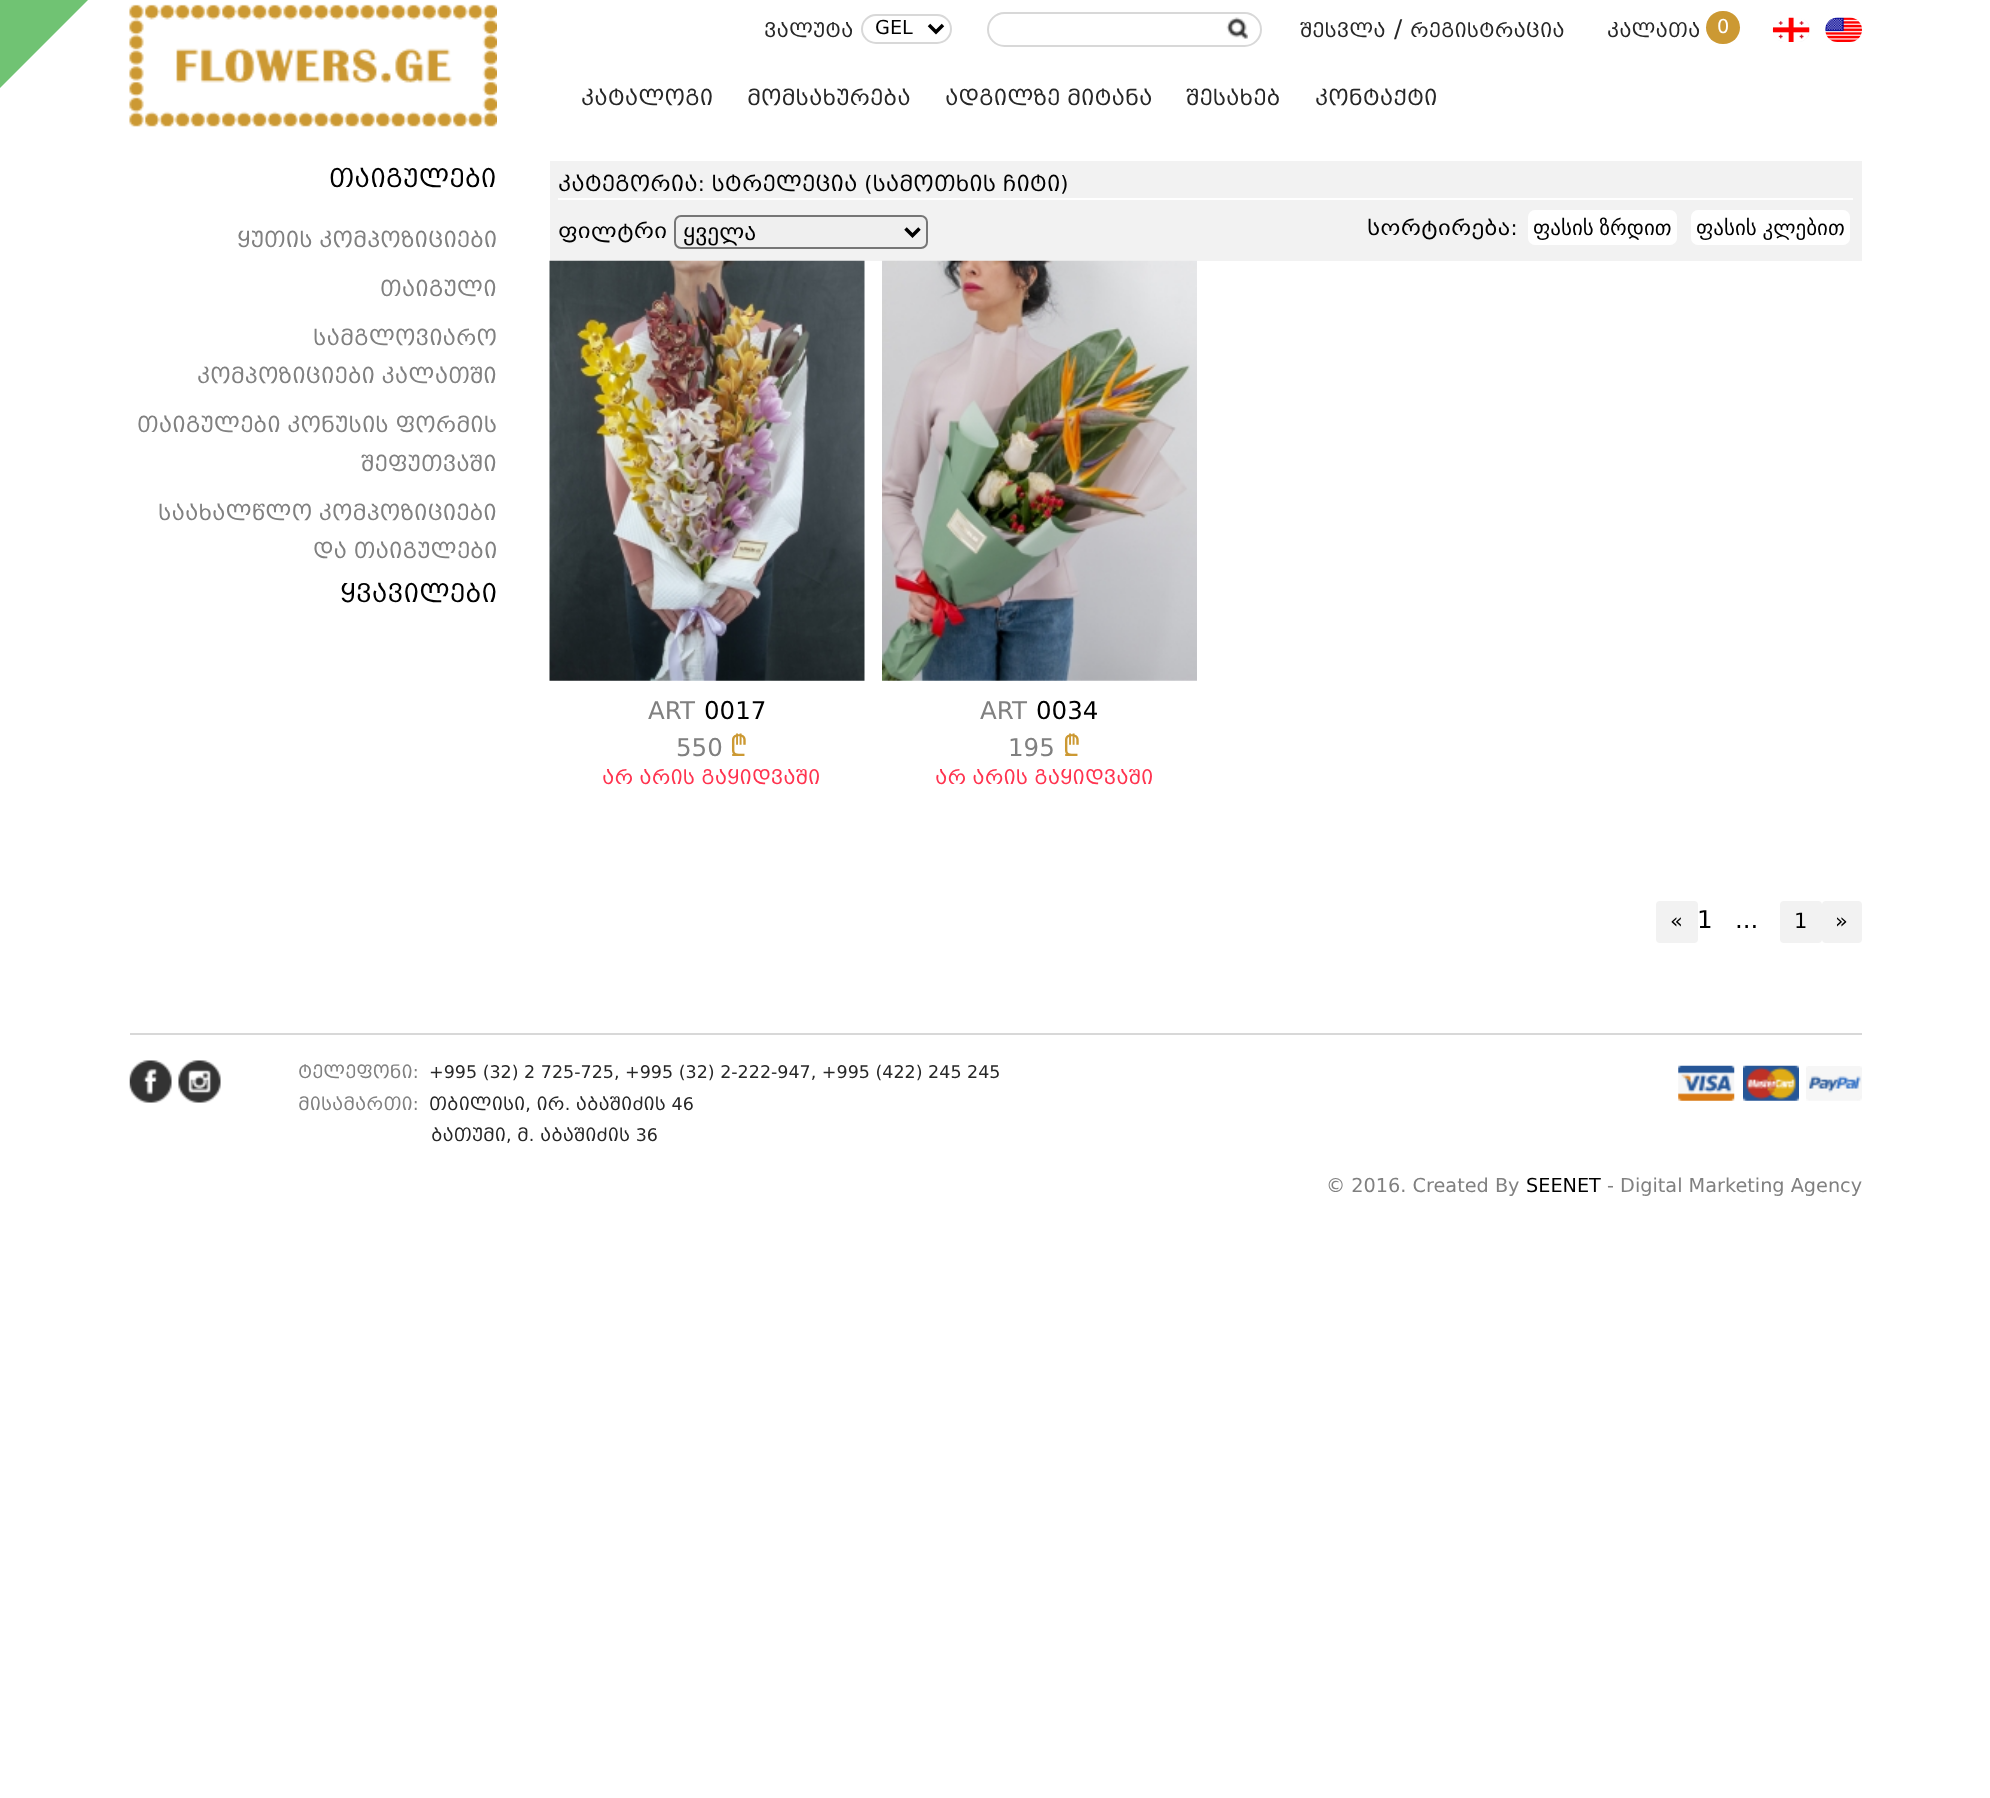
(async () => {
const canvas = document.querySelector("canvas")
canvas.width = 1990
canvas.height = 1798
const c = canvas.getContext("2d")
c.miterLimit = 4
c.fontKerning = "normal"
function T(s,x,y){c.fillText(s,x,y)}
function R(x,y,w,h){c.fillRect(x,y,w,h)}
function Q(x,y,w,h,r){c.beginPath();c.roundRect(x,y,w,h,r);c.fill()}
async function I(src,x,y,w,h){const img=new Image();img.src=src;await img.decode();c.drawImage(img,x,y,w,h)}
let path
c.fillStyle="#fff"
R(0,0,1990,1798)
c.fillStyle="#70c373"
path = new Path2D("M0 0h88l-88 88z")
c.fill(path)
c.font="19.25px 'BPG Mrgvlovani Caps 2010'"
c.fillStyle="#272727"
T("ვალუტა",764,37)
c.beginPath()
c.roundRect(862,15,89,28,14)
c.strokeStyle="#d8d8d8"
c.lineWidth=2
c.stroke()
path = new Path2D("M929 25l7 7l7-7")
c.strokeStyle="#000"
c.lineWidth=3.5
c.stroke(path)
c.fillStyle="#000"
T("GEL",875,34)
c.beginPath()
c.roundRect(988,13,273,33,16.5)
c.strokeStyle="#d8d8d8"
c.lineWidth=2
c.stroke()
c.fillStyle="#fff"
Q(1222,14,29,28,7)
await I("1.png",1226,17,22,22)
c.fillStyle="#272727"
T("შესვლა",1300,37)
c.font="24.5px 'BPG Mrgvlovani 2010'"
T("/",1394,37)
c.font="19.25px 'BPG Mrgvlovani Caps 2010'"
T("რეგისტრაცია",1410,37)
T("კალათა",1607,37)
c.fillStyle="#c93"
Q(1706,11,34,33,16.5)
c.font="19.25px 'BPG Mrgvlovani 2010'"
c.fillStyle="#fff"
T("0",1717,33)
c.fillStyle="#f2f2f2"
Q(1773,18,37,24,12)
await I("2.png",1772,17,38,25)
Q(1825,18,37,24,12)
await I("3.png",1825,17,37,25)
await I("4.png",129,4,368,123)
c.font="21px 'BPG Mrgvlovani Caps 2010'"
c.fillStyle="#272727"
T("კატალოგი",581,105)
T("მომსახურება",747,105)
T("ადგილზე მიტანა",945,105)
T("შესახებ",1186,105)
T("კონტაქტი",1315,105)
c.font="24.5px 'BPG Mrgvlovani Caps 2010'"
c.fillStyle="#000"
T("თაიგულები",329,187)
c.font="21px 'BPG Mrgvlovani Caps 2010'"
c.fillStyle="#808080"
T("ყუთის კომპოზიციები",237,247)
T("თაიგული",380,296)
T("სამგლოვიარო",313,345)
T("კომპოზიციები კალათში",197,383)
T("თაიგულები კონუსის ფორმის",137,432)
T("შეფუთვაში",361,471)
T("საახალწლო კომპოზიციები",158,520)
T("და თაიგულები",313,558)
c.font="24.5px 'BPG Mrgvlovani Caps 2010'"
c.fillStyle="#000"
T("ყვავილები",340,602)
c.fillStyle="#f2f2f2"
R(550,161,1312,100)
c.fillStyle="#fff"
R(558,198,1295,2)
c.font="21px 'BPG Mrgvlovani Caps 2010'"
c.fillStyle="#000"
T("კატეგორია: სტრელეცია (სამოთხის ჩიტი)",558,191)
c.font="21px 'BPG Mrgvlovani 2010'"
T("ფილტრი",558,238)
c.fillStyle="#efefef"
c.beginPath()
c.roundRect(675,216,252,32,6)
c.fill()
c.strokeStyle="#767676"
c.stroke()
path = new Path2D("M905.5 228.5l7 7l7-7")
c.strokeStyle="#000"
c.lineWidth=3.5
c.stroke(path)
c.font="23.5px DejaVu Sans"
c.fillStyle="#000"
T("ყველა",683,240)
c.font="21px 'BPG Mrgvlovani 2010'"
T("სორტირება:",1367,235)
c.fillStyle="#fff"
Q(1528,210,149,35,7)
c.wordSpacing="-1px"
c.font="21px DejaVu Sans"
c.fillStyle="#000"
T("ფასის ზრდით",1533,235)
c.fillStyle="#fff"
Q(1691,210,159,35,7)
c.fillStyle="#000"
T("ფასის კლებით",1696,235)
await I("5.png",549,260,316,421)
c.wordSpacing="0px"
c.font="24.5px 'BPG Mrgvlovani 2010'"
c.fillStyle="#808080"
T("ART",648,719)
c.fillStyle="#000"
T("0017",704,719)
c.font="24.5px 'BPG Mrgvlovani Caps 2010'"
c.fillStyle="#808080"
T("550",676,756)
c.font="32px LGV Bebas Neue"
c.fillStyle="#c93"
T("L",731,756)
c.font="19.25px 'BPG Mrgvlovani Caps 2010'"
c.fillStyle="#ff334f"
T("არ არის გაყიდვაში",602,784)
await I("6.png",882,260,315,421)
c.font="24.5px 'BPG Mrgvlovani 2010'"
c.fillStyle="#808080"
T("ART",980,719)
c.fillStyle="#000"
T("0034",1036,719)
c.font="24.5px 'BPG Mrgvlovani Caps 2010'"
c.fillStyle="#808080"
T("195",1008,756)
c.font="32px LGV Bebas Neue"
c.fillStyle="#c93"
T("L",1064,756)
c.font="19.25px 'BPG Mrgvlovani Caps 2010'"
c.fillStyle="#ff334f"
T("არ არის გაყიდვაში",935,784)
c.fillStyle="#f2f2f2"
Q(1656,901,42,42,4)
c.font="21px 'BPG Mrgvlovani 2010'"
c.fillStyle="#000"
T("«",1670,928)
c.font="24.5px 'BPG Mrgvlovani 2010'"
T("1",1697,928)
T("...",1735,928)
c.fillStyle="#f2f2f2"
Q(1780,901,42,42,4)
c.font="21px 'BPG Mrgvlovani 2010'"
c.fillStyle="#000"
T("1",1794,928)
c.fillStyle="#f2f2f2"
Q(1822,901,40,42,4)
c.fillStyle="#000"
T("»",1835,928)
c.fillStyle="#d8d8d8"
R(130,1033,1732,2)
await I("7.png",129,1060,43,43)
await I("8.png",178,1060,43,43)
c.font="17.5px 'BPG Mrgvlovani Caps 2010'"
c.fillStyle="#808080"
T("ტელეფონი:",298,1078)
c.fillStyle="#272727"
T("+995 (32) 2 725-725, +995 (32) 2-222-947, +995 (422) 245 245",429,1078)
c.fillStyle="#808080"
T("მისამართი:",298,1110)
c.fillStyle="#272727"
T("თბილისი, ირ. აბაშიძის 46",429,1110)
T("ბათუმი, მ. აბაშიძის 36",431,1141)
await I("9.png",1678,1065,57,36)
await I("10.png",1743,1065,56,36)
await I("11.png",1806,1066,56,35)
c.font="19.25px 'BPG Mrgvlovani 2010'"
c.fillStyle="#808080"
T("© 2016. Created By",1326,1192)
c.fillStyle="#000"
T("SEENET",1526,1192)
c.fillStyle="#808080"
T("- Digital Marketing Agency",1607,1192)
})()
